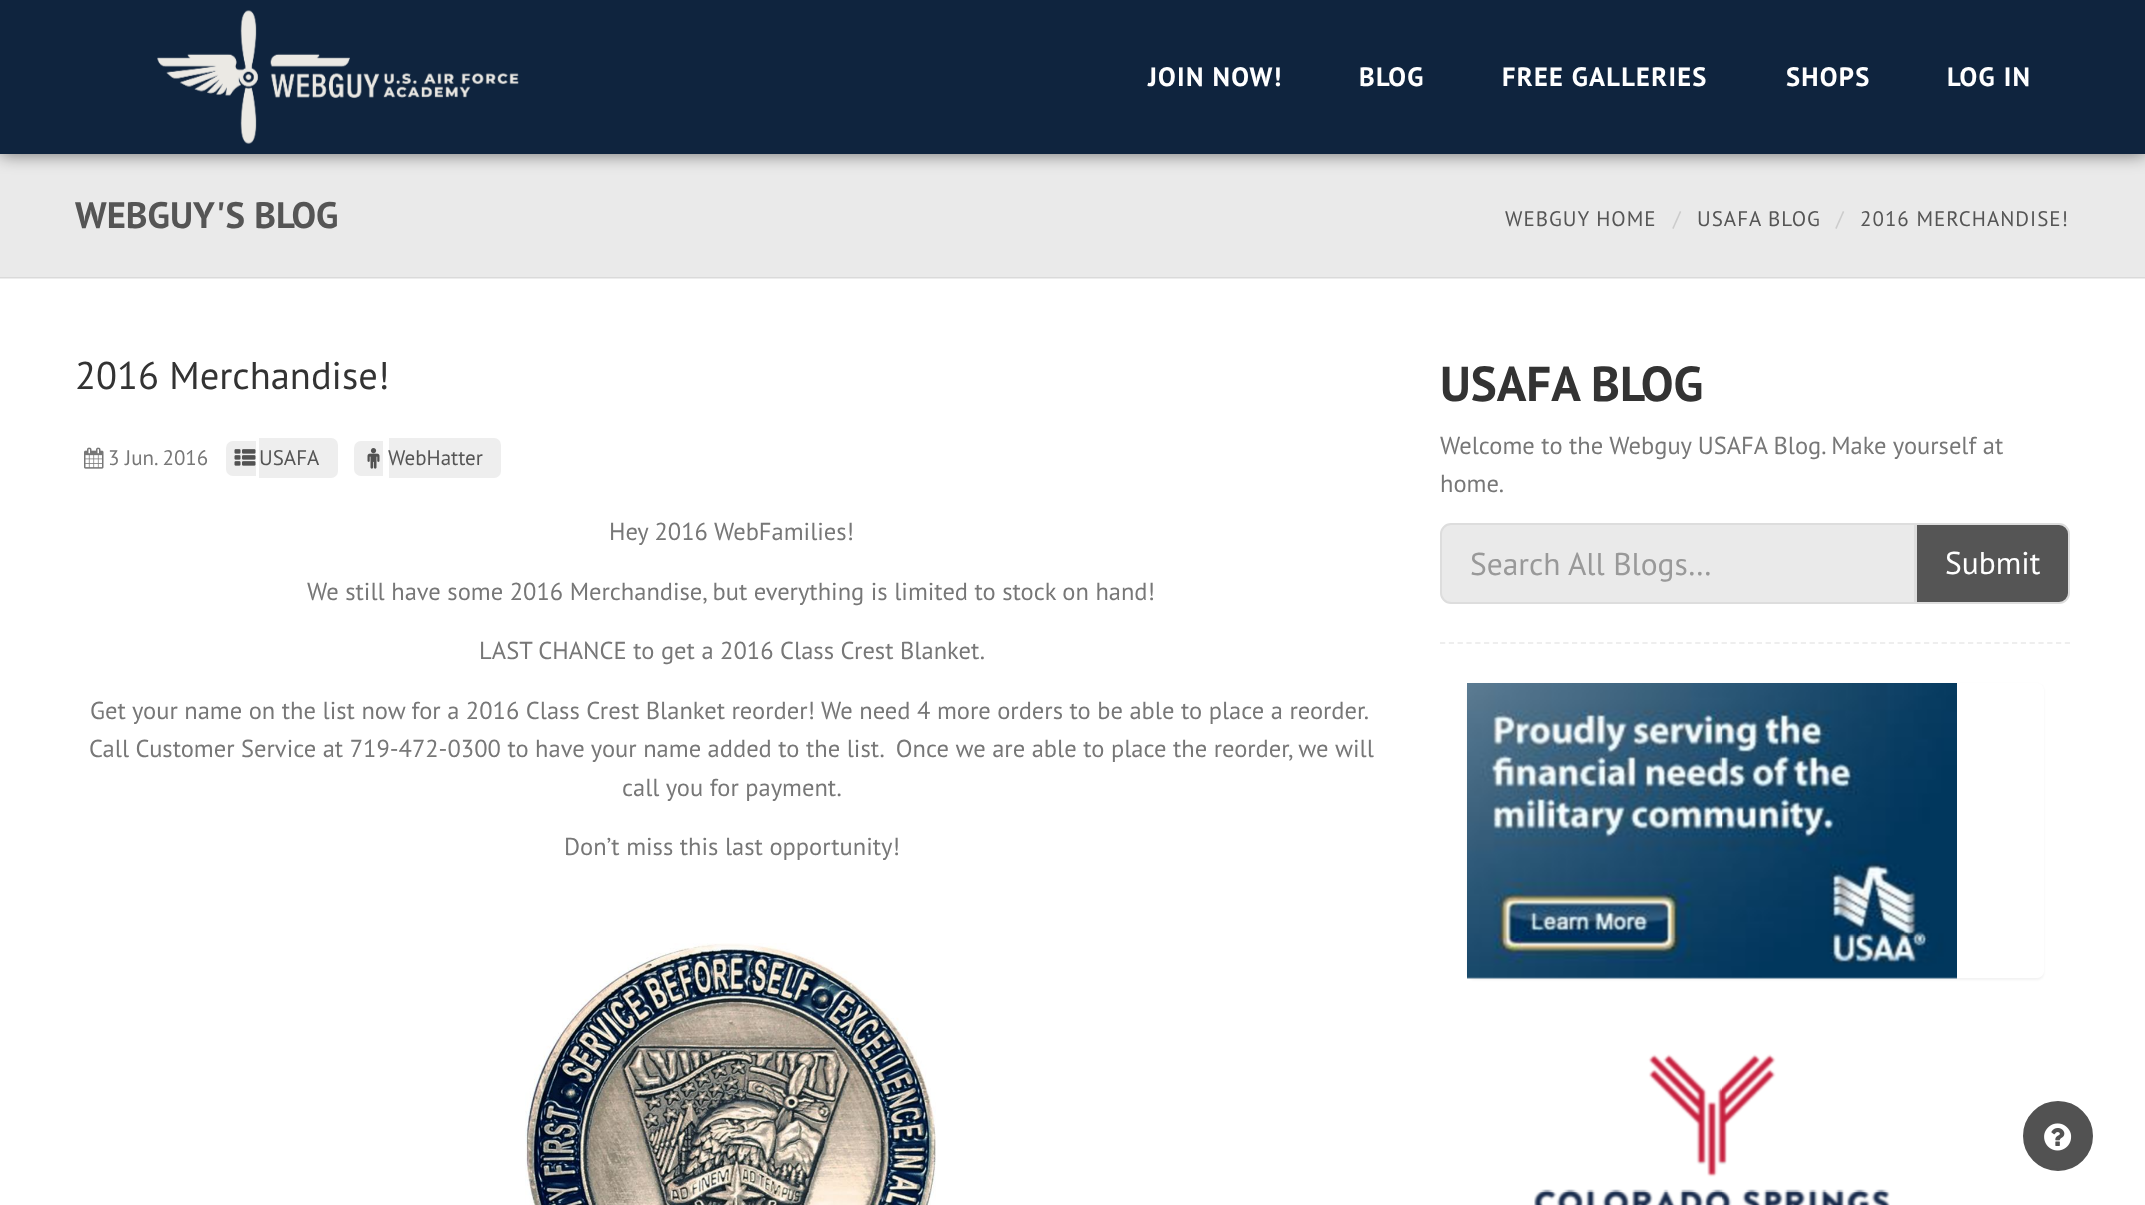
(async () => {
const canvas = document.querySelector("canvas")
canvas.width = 2145
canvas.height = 1205
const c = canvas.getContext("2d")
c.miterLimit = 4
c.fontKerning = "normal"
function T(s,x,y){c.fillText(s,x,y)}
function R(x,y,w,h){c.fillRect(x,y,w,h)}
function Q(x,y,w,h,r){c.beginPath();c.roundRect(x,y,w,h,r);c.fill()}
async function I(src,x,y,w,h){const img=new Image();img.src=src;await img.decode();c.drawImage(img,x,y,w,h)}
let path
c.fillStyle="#fff"
R(0,0,2145,1205)
c.fillStyle="#ededed"
R(0,278,2145,1)
c.fillStyle="#eaeaea"
R(0,154,2145,123)
c.fillStyle="#0000008a"
c.filter="blur(9px)"
c.beginPath()
c.rect(0,0,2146,154)
c.fill()
c.filter="none"
c.fillStyle="#0f243e"
R(0,0,2145,154)
await I("1.png",157,10,362,134)
c.letterSpacing="1.25px"
c.font="bold 26.5px PT Sans"
c.fillStyle="#fff"
T("JOIN NOW!",1148,86)
T("BLOG",1359,86)
T("FREE GALLERIES",1502,86)
T("SHOPS",1786,86)
T("LOG IN",1947,86)
c.fillStyle="#dadada"
R(0,277,2145,1)
c.letterSpacing="0px"
c.font="bold 36.75px PT Sans"
c.fillStyle="#555"
T("WEBGUY'S BLOG",75,228)
c.letterSpacing="1px"
c.font="21px PT Sans"
T("WEBGUY HOME",1505,226)
c.fillStyle="#ccc"
T("/",1673,226)
c.fillStyle="#555"
T("USAFA BLOG",1697,226)
c.fillStyle="#ccc"
T("/",1836,226)
c.fillStyle="#555"
T("2016 MERCHANDISE!",1860,226)
c.letterSpacing="0px"
c.font="38.5px PT Sans"
c.fillStyle="#333"
T("2016 Merchandise!",75,389)
await I("2.png",84,447,20,22)
c.font="21px PT Sans"
c.fillStyle="#777"
T("3 Jun. 2016",108,465)
c.fillStyle="#eee"
c.beginPath()
c.roundRect(226,441,30,35,[7,0,0,7])
c.fill()
c.beginPath()
c.roundRect(259,438,79,40,[0,7,7,0])
c.fill()
await I("3.png",234,449,22,17)
c.fillStyle="#555"
T("USAFA",259,465)
c.fillStyle="#eee"
c.beginPath()
c.roundRect(354,441,29,35,[7,0,0,7])
c.fill()
c.beginPath()
c.roundRect(389,438,112,40,[0,7,7,0])
c.fill()
await I("4.png",367,448,13,21)
c.fillStyle="#555"
T("WebHatter",388,465)
c.font="24.5px PT Sans"
c.fillStyle="#777"
T("Hey 2016 WebFamilies!",609,540)
T("We still have some 2016 Merchandise, but everything is limited to stock on hand!",307,600)
T("LAST CHANCE to get a 2016 Class Crest Blanket.",479,659)
T("Get your name on the list now for a 2016 Class Crest Blanket reorder! We need 4 more orders to be able to place a reorder.",90,719)
T("Call Customer Service at 719-472-0300 to have your name added to the list.  Once we are able to place the reorder, we will",89,757)
T("call you for payment.",622,796)
T("Don’t miss this last opportunity!",564,855)
await I("5.png",525,943,411,262)
c.font="bold 49px PT Sans"
c.fillStyle="#333"
T("USAFA BLOG",1440,401)
c.font="24.5px PT Sans"
c.fillStyle="#777"
T("Welcome to the Webguy USAFA Blog. Make yourself at",1440,454)
T("home.",1440,492)
path = new Path2D("M1440 643h630")
c.strokeStyle="#eee"
c.lineWidth=1.8
c.setLineDash([5.25,3.55])
c.stroke(path)
c.fillStyle="#eaeaea"
c.beginPath()
c.roundRect(1441,524,474,79,[10,0,0,10])
c.fill()
c.strokeStyle="#ddd"
c.lineWidth=2
c.setLineDash([])
c.stroke()
c.font="31.5px PT Sans"
c.fillStyle="#999"
T("Search All Blogs…",1470,575)
c.fillStyle="#555"
c.beginPath()
c.roundRect(1916,524,153,79,[0,10,10,0])
c.fill()
c.stroke()
c.fillStyle="#fff"
T("Submit",1945,574)
c.fillStyle="#0000000d"
c.filter="blur(1px)"
c.beginPath()
c.roundRect(1467,684,577,296,7)
c.fill()
c.filter="none"
c.fillStyle="#fff"
Q(1467,683,577,295,7)
await I("6.png",1467,683,490,296)
await I("7.png",1534,1054,356,151)
c.fillStyle="#525252"
c.beginPath()
c.arc(2058,1136,34,0,7)
c.fill()
c.strokeStyle="#525252"
c.stroke()
await I("8.png",2044,1123,28,28)
})()
